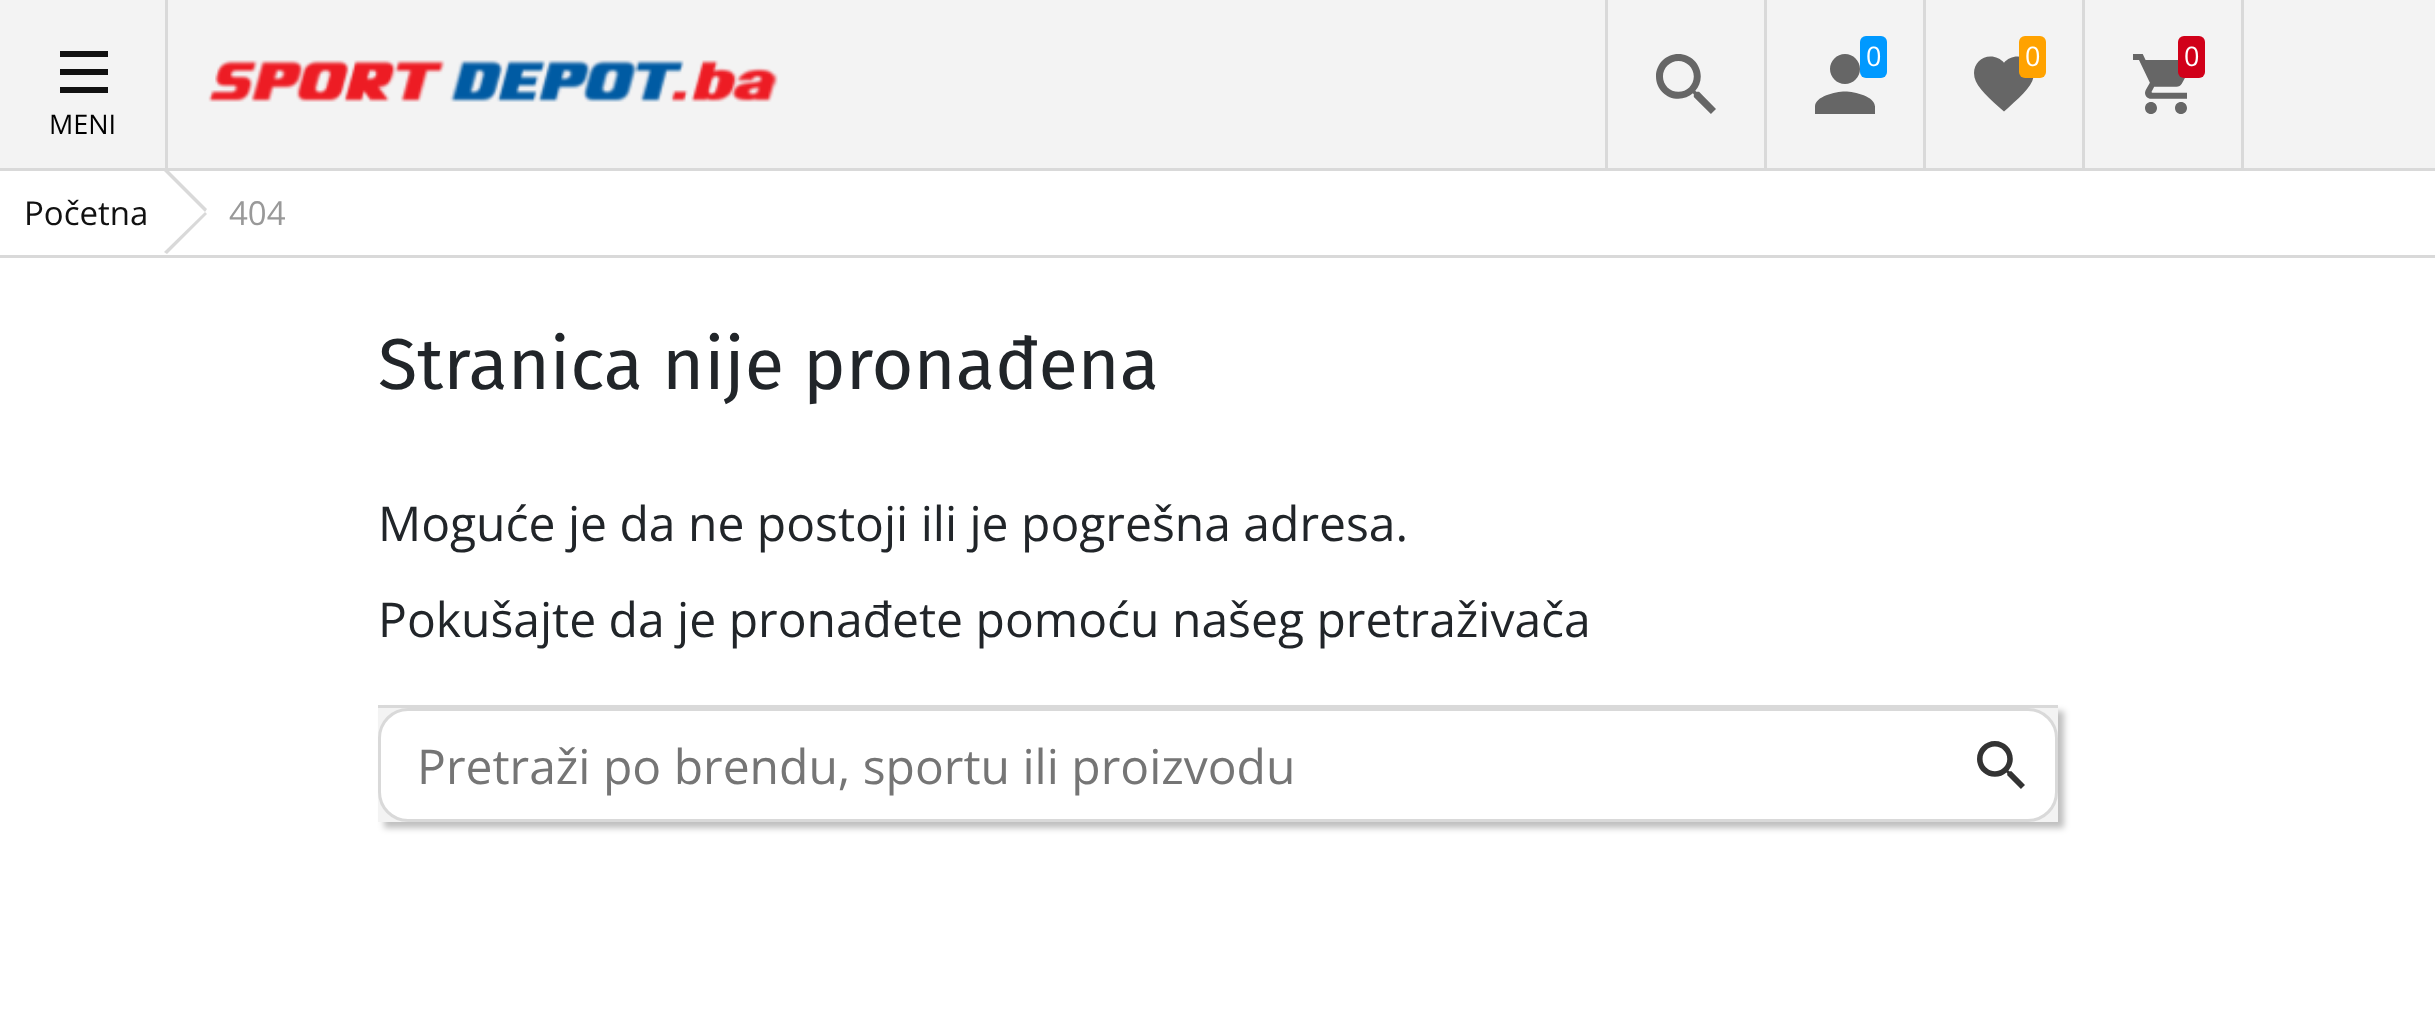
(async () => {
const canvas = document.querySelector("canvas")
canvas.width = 2435
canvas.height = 1020
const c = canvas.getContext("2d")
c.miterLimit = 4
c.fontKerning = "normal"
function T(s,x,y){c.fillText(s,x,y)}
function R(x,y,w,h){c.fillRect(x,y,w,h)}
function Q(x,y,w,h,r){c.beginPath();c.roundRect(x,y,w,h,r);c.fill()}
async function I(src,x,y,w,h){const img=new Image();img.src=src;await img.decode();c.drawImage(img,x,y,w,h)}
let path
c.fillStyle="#fff"
R(0,0,2435,1020)
c.fillStyle="#f3f3f3"
R(0,0,2435,168)
c.fillStyle="#d9d9d9"
path = new Path2D("M164 171l3-2l40 40l-2 3z")
c.fill(path)
R(0,168,2435,3)
R(1605,0,3,168)
await I("1.png",1656,54,60,60)
R(1764,0,3,168)
await I("2.png",1815,54,60,60)
c.fillStyle="#09f"
Q(1860,36,27,42,6)
c.font="27px Open Sans"
c.fillStyle="#fff"
T("0",1866,66)
c.fillStyle="#d9d9d9"
R(1923,0,3,168)
await I("3.png",1974,56,60,56)
c.fillStyle="#ffa200"
Q(2019,36,27,42,6)
c.fillStyle="#fff"
T("0",2025,66)
c.fillStyle="#d9d9d9"
R(2082,0,3,168)
await I("4.png",2133,54,54,60)
c.fillStyle="#d10019"
Q(2178,36,27,42,6)
c.fillStyle="#fff"
T("0",2184,66)
c.fillStyle="#d9d9d9"
R(2241,0,3,168)
await I("5.png",208,60,570,42)
R(165,0,3,168)
c.fillStyle="#111"
R(60,69,48,6)
R(60,51,48,6)
R(60,87,48,6)
c.fillStyle="#000"
T("MENI",49,134)
c.fillStyle="#d9d9d9"
R(0,255,2435,3)
c.font="33px Open Sans"
c.fillStyle="#111"
T("Početna",24,225)
c.fillStyle="#d9d9d9"
path = new Path2D("M164 252l41-40l2 2l-40 40z")
c.fill(path)
c.fillStyle="#999"
T("404",229,225)
c.font="72px Fira Sans"
c.fillStyle="#212529"
T("Stranica nije pronađena",378,389)
c.font="48px Open Sans"
T("Moguće je da ne postoji ili je pogrešna adresa.",378,541)
T("Pokušajte da je pronađete pomoću našeg pretraživača",378,637)
c.fillStyle="#00000040"
c.filter="blur(3px)"
c.beginPath()
c.rect(384,711,1680,117)
c.fill()
c.filter="none"
c.fillStyle="#f3f3f3"
R(378,708,1680,114)
c.fillStyle="#d9d9d9"
R(378,705,1680,3)
c.fillStyle="#fff"
c.beginPath()
c.roundRect(379.5,709.5,1677,111,28.5)
c.fill()
c.strokeStyle="#d9d9d9"
c.lineWidth=3
c.stroke()
c.fillStyle="#757575"
T("Pretraži po brendu, sportu ili proizvodu",417,784)
await I("6.png",1977,741,48,48)
})()
